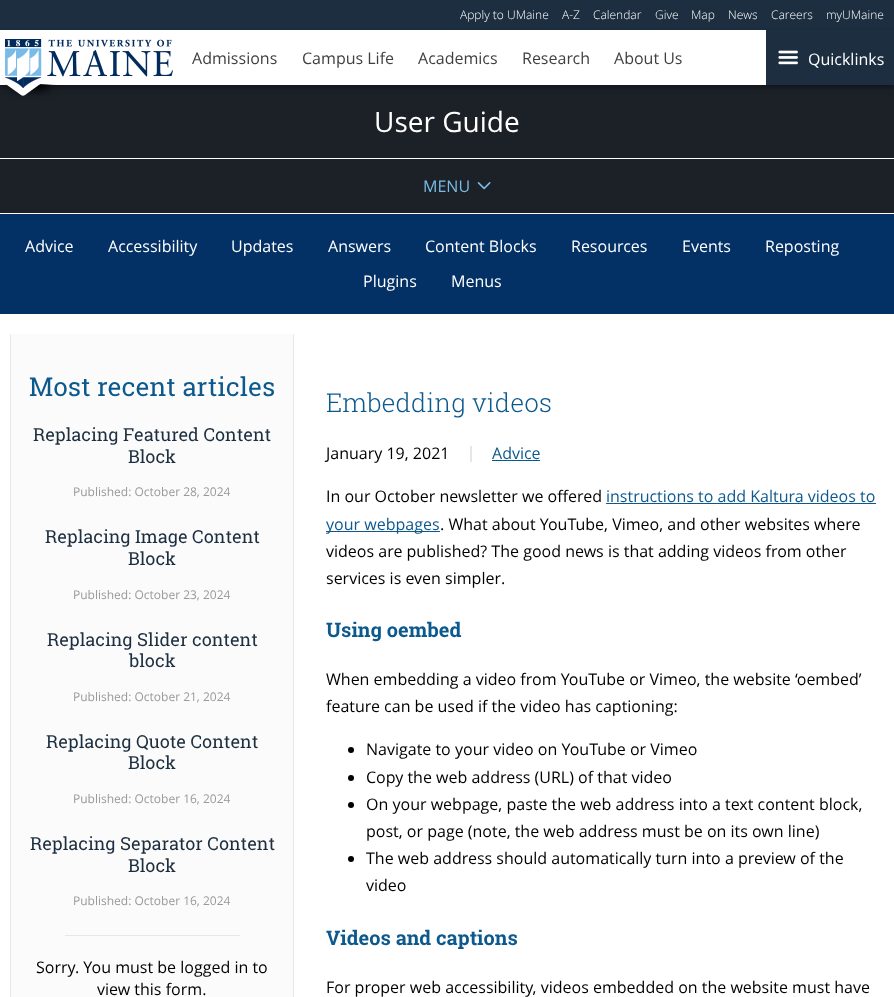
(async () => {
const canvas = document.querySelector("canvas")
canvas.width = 894
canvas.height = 997
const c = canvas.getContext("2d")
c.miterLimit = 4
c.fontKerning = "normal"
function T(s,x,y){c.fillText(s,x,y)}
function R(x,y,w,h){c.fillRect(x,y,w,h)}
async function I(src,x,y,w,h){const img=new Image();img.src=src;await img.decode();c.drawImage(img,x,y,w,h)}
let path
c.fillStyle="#fff"
R(0,0,894,997)
c.fillStyle="#1c2e3f"
R(0,0,894,30)
c.font="300 12px Open Sans"
c.fillStyle="#fff"
T("Apply to UMaine",460,19)
T("A-Z",562,19)
T("Calendar",593,19)
T("Give",655,19)
T("Map",691,19)
T("News",728,19)
T("Careers",771,19)
T("myUMaine",826,19)
c.fillStyle="#1c2128"
R(0,85,894,128)
c.fillStyle="#00000059"
c.filter="blur(2.5px)"
c.beginPath()
c.rect(0,33,894,55)
c.fill()
c.filter="none"
c.fillStyle="#fff"
R(0,30,766,55)
c.fillStyle="#000"
c.filter="blur(5px)"
c.beginPath()
c.roundRect(13,70,35,20,2)
c.fill()
c.filter="none"
c.fillStyle="#fff"
path = new Path2D("M7 83l25-18c1-1 3-1 4 0l14 10c1 1 1 2 0 2l-25 18c-1 1-3 1-4 0l-14-10c-1-1-1-2 0-2z")
c.fill(path)
R(2,58,57,26)
await I("1.png",5,39,168,49)
c.font="16px Open Sans"
c.fillStyle="#404041"
T("Admissions",192,64)
T("Campus Life",302,64)
T("Academics",418,64)
T("Research",522,64)
T("About Us",614,64)
c.fillStyle="#1c2e3f"
R(766,30,128,55)
await I("2.png",778,50,20,15)
c.fillStyle="#fff"
T("Quicklinks",808,65)
c.font="28px Open Sans"
T("User Guide",374,132)
R(0,158,894,1)
c.font="16px Open Sans"
c.fillStyle="#79bce7"
T("MENU",423,192)
await I("3.png",477,182,14,8)
c.fillStyle="#033165"
R(0,214,894,100)
c.fillStyle="#fff"
T("Advice",25,252)
T("Accessibility",108,252)
T("Updates",231,252)
T("Answers",328,252)
T("Content Blocks",425,252)
T("Resources",571,252)
T("Events",682,252)
T("Reposting",765,252)
T("Plugins",363,287)
T("Menus",451,287)
c.fillStyle="#fbfbfb"
R(11,334,282,663)
c.fillStyle="#e6e7e8"
R(293,334,1,663)
R(10,334,1,663)
c.font="26px Roboto Slab"
c.fillStyle="#0c598e"
T("Most recent articles",29,396)
c.font="18px Roboto Slab"
c.fillStyle="#1c2e3f"
T("Replacing Featured Content",33,441)
T("Block",128,463)
c.font="12px Open Sans"
c.fillStyle="#999"
T("Published: October 28, 2024",73,496)
c.font="18px Roboto Slab"
c.fillStyle="#1c2e3f"
T("Replacing Image Content",45,543)
T("Block",128,565)
c.font="12px Open Sans"
c.fillStyle="#999"
T("Published: October 23, 2024",73,599)
c.font="18px Roboto Slab"
c.fillStyle="#1c2e3f"
T("Replacing Slider content",47,646)
T("block",129,667)
c.font="12px Open Sans"
c.fillStyle="#999"
T("Published: October 21, 2024",73,701)
c.font="18px Roboto Slab"
c.fillStyle="#1c2e3f"
T("Replacing Quote Content",46,748)
T("Block",128,769)
c.font="12px Open Sans"
c.fillStyle="#999"
T("Published: October 16, 2024",73,803)
c.font="18px Roboto Slab"
c.fillStyle="#1c2e3f"
T("Replacing Separator Content",30,850)
T("Block",128,872)
c.font="12px Open Sans"
c.fillStyle="#999"
T("Published: October 16, 2024",73,905)
c.fillStyle="#e6e7e8"
R(65,935,175,1)
c.font="16px Open Sans"
c.fillStyle="#000"
T("Sorry. You must be logged in to",36,973)
T("view this form.",97,995)
c.font="300 26px Roboto Slab"
c.fillStyle="#0c598e"
T("Embedding videos",326,412)
c.font="16px Open Sans"
c.fillStyle="#000"
T("January 19, 2021",326,459)
c.fillStyle="#e6e7e8"
R(470,446,2,16)
c.fillStyle="#0c598e"
T("Advice",492,459)
R(492,460,48,1)
c.fillStyle="#000"
T("In our October newsletter we offered",326,502)
c.fillStyle="#0c598e"
T("instructions to add Kaltura videos to",606,502)
R(606,503,270,1)
R(326,531,114,1)
T("your webpages",326,530)
c.fillStyle="#000"
T(". What about YouTube, Vimeo, and other websites where",440,530)
T("videos are published? The good news is that adding videos from other",326,557)
T("services is even simpler.",326,584)
c.font="bold 20px Roboto Slab"
c.fillStyle="#0c598e"
T("Using oembed",326,637)
c.font="16px Open Sans"
c.fillStyle="#000"
T("When embedding a video from YouTube or Vimeo, the website ‘oembed’",326,685)
T("feature can be used if the video has captioning:",326,712)
c.beginPath()
c.arc(351,750,3,0,7)
c.fill()
T("Navigate to your video on YouTube or Vimeo",366,755)
c.beginPath()
c.arc(351,778,3,0,7)
c.fill()
T("Copy the web address (URL) of that video",366,783)
c.beginPath()
c.arc(351,805,3,0,7)
c.fill()
T("On your webpage, paste the web address into a text content block,",366,810)
T("post, or page (note, the web address must be on its own line)",366,837)
c.beginPath()
c.arc(351,859,3,0,7)
c.fill()
T("The web address should automatically turn into a preview of the",366,864)
T("video",366,891)
c.font="bold 20px Roboto Slab"
c.fillStyle="#0c598e"
T("Videos and captions",326,945)
c.font="16px Open Sans"
c.fillStyle="#000"
T("For proper web accessibility, videos embedded on the website must have",326,993)
})()
